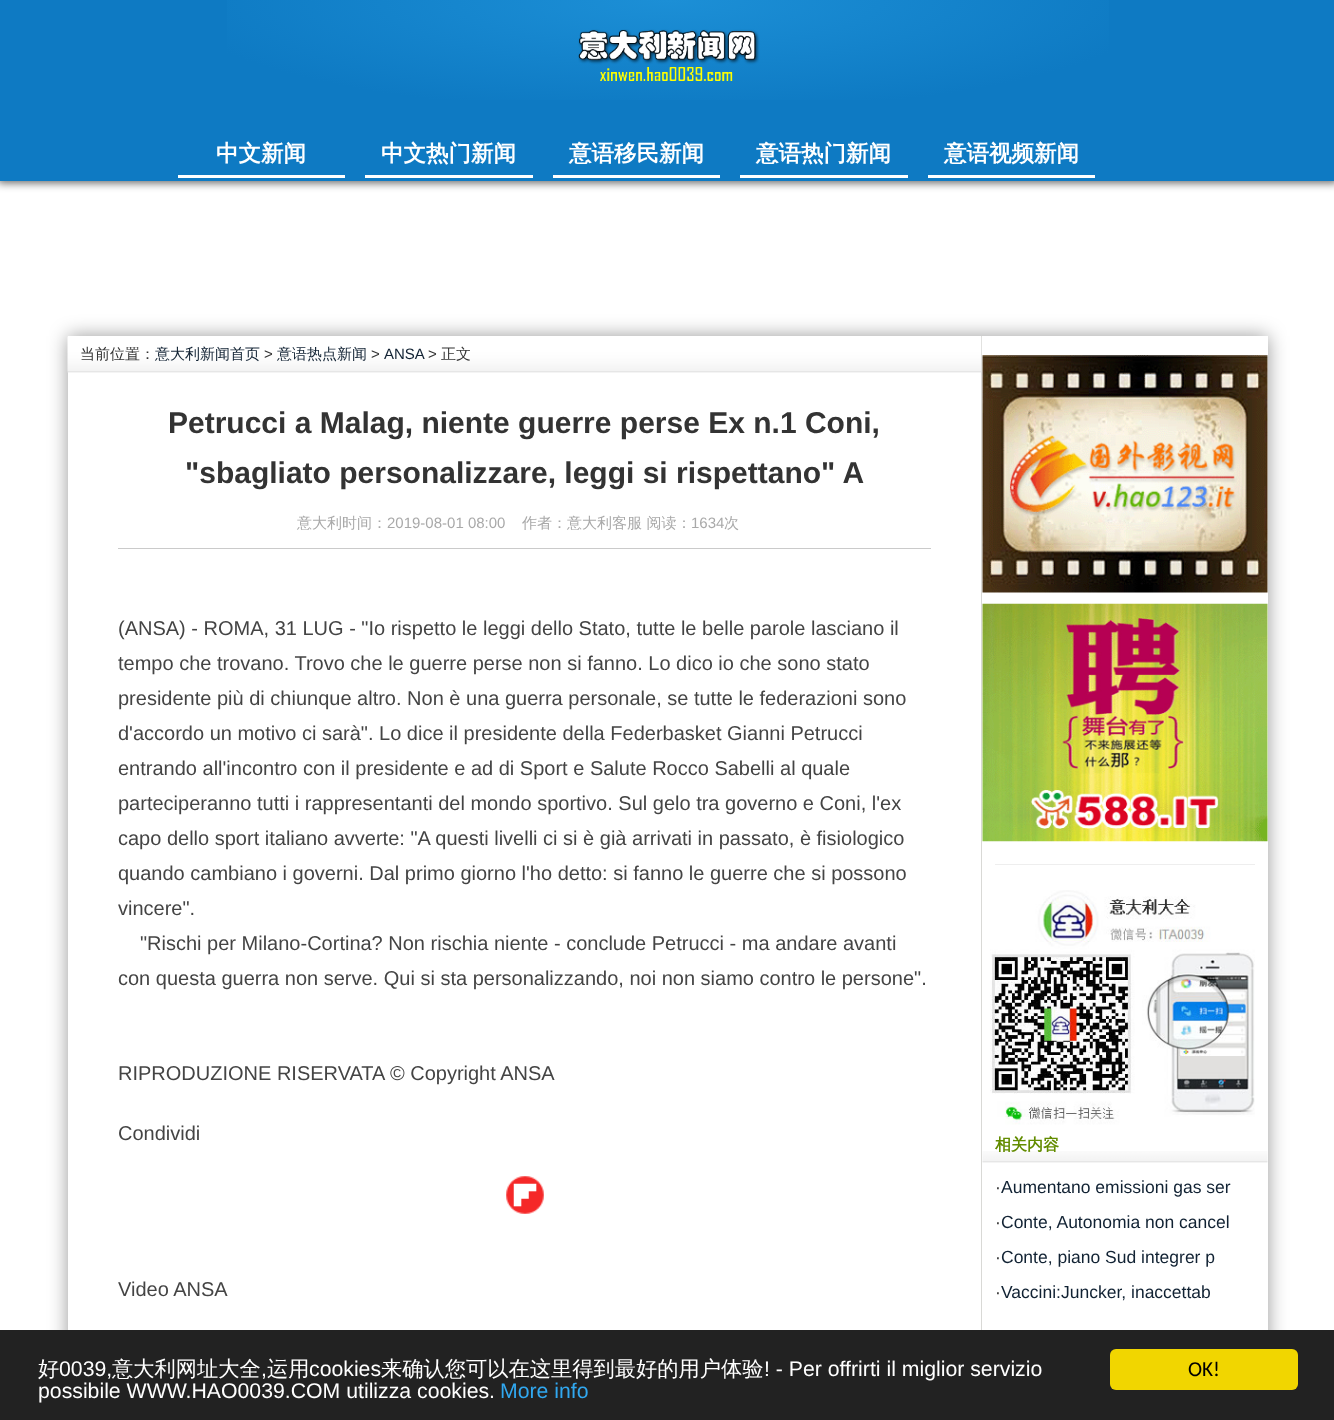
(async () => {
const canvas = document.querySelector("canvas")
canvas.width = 1334
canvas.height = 1420
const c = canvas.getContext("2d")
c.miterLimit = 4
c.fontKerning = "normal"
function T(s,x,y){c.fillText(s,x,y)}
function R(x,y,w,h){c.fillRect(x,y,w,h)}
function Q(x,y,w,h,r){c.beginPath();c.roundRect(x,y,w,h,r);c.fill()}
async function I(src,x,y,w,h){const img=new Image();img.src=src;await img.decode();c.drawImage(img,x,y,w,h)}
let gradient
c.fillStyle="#fff"
R(0,0,1334,1420)
c.fillStyle="#00000099"
c.filter="blur(4px)"
c.beginPath()
c.rect(-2,110,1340,73)
c.fill()
c.filter="none"
c.fillStyle="#0e7ac3"
R(0,0,1334,181)
gradient = c.createRadialGradient(668,0,0,668,0,500)
gradient.addColorStop(0,"#1c8fd6")
gradient.addColorStop(1,"#0e7ac3")
c.fillStyle = gradient
c.beginPath()
c.rect(227,0,882,100)
c.save()
c.clip()
c.scale(1,113 / 500)
c.fillRect(0,0,1334,6284)
c.restore()
await I("1.png",578,29,182,52)
c.fillStyle="#fff"
R(178,175,167,3)
c.font="bold 22.5px WenQuanYi Zen Hei"
T("中文新闻",216,161)
R(365,175,168,3)
T("中文热门新闻",381,161)
R(553,175,167,3)
T("意语移民新闻",569,161)
R(740,175,168,3)
T("意语热门新闻",756,161)
R(928,175,167,3)
T("意语视频新闻",944,161)
c.fillStyle="#00000066"
c.filter="blur(9.5px)"
c.beginPath()
c.rect(68,336,1200,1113)
c.fill()
c.filter="none"
c.fillStyle="#fff"
R(68,336,1200,994)
c.fillStyle="#d9d9d6"
R(981,336,1,994)
await I("2.png",67,336,915,37)
c.font="500 15px WenQuanYi Zen Hei"
c.fillStyle="#333"
T("当前位置：",80,359)
c.fillStyle="#123"
T("意大利新闻首页",155,359)
c.font="15px Liberation Sans"
c.fillStyle="#333"
T(">",264,359)
c.font="500 15px WenQuanYi Zen Hei"
c.fillStyle="#123"
T("意语热点新闻",277,359)
c.font="15px Liberation Sans"
c.fillStyle="#333"
T(">",371,359)
c.fillStyle="#123"
T("ANSA",384,359)
c.fillStyle="#333"
T(">",428,359)
c.font="500 15px WenQuanYi Zen Hei"
T("正文",441,359)
c.font="bold 30px Liberation Sans"
T("Petrucci a Malag, niente guerre perse Ex n.1 Coni,",168,433)
T("\"sbagliato personalizzare, leggi si rispettano\" A",185,483)
c.font="500 15px WenQuanYi Zen Hei"
c.fillStyle="#a9a9a9"
T("意大利时间：",297,528)
c.font="15px Liberation Sans"
T("2019-08-01 08:00",387,528)
c.font="500 15px WenQuanYi Zen Hei"
T("作者：意大利客服 阅读：",522,528)
c.font="15px Liberation Sans"
T("1634",691,528)
c.font="500 15px WenQuanYi Zen Hei"
T("次",724,528)
c.fillStyle="#cacaca"
R(118,548,813,1)
c.font="20px Liberation Sans"
c.fillStyle="#444"
T("(ANSA) - ROMA, 31 LUG - \"Io rispetto le leggi dello Stato, tutte le belle parole lasciano il",118,635)
T("tempo che trovano. Trovo che le guerre perse non si fanno. Lo dico io che sono stato",118,670)
T("presidente più di chiunque altro. Non è una guerra personale, se tutte le federazioni sono",118,705)
T("d'accordo un motivo ci sarà\". Lo dice il presidente della Federbasket Gianni Petrucci",118,740)
T("entrando all'incontro con il presidente e ad di Sport e Salute Rocco Sabelli al quale",118,775)
T("parteciperanno tutti i rappresentanti del mondo sportivo. Sul gelo tra governo e Coni, l'ex",118,810)
T("capo dello sport italiano avverte: \"A questi livelli ci si è già arrivati in passato, è fisiologico",118,845)
T("quando cambiano i governi. Dal primo giorno l'ho detto: si fanno le guerre che si possono",118,880)
T("vincere\".",118,915)
T("\"Rischi per Milano-Cortina? Non rischia niente - conclude Petrucci - ma andare avanti",140,950)
T("con questa guerra non serve. Qui si sta personalizzando, noi non siamo contro le persone\".",118,985)
T("RIPRODUZIONE RISERVATA © Copyright ANSA",118,1080)
T("Condividi",118,1140)
await I("3.png",506,1176,38,38)
T("Video ANSA",118,1296)
await I("4.png",982,355,286,238)
await I("5.png",982,603,286,239)
c.fillStyle="#eee"
R(995,864,260,1)
await I("6.png",990,890,265,235)
await I("7.png",982,1151,286,12)
c.font="bold 16px WenQuanYi Zen Hei"
c.fillStyle="#638c00"
T("相关内容",995,1150)
c.font="17.5px Liberation Sans"
c.fillStyle="#333"
T("·",995,1193)
c.fillStyle="#123"
T("Aumentano emissioni gas ser",1001,1193)
c.fillStyle="#333"
T("·",995,1228)
c.fillStyle="#123"
T("Conte, Autonomia non cancel",1001,1228)
c.fillStyle="#333"
T("·",995,1263)
c.fillStyle="#123"
T("Conte, piano Sud integrer p",1001,1263)
c.fillStyle="#333"
T("·",995,1298)
c.fillStyle="#123"
T("Vaccini:Juncker, inaccettab",1001,1298)
c.fillStyle="#222"
R(0,1330,1334,90)
c.font="500 21.25px WenQuanYi Zen Hei"
c.fillStyle="#fff"
T("好",38,1376)
c.font="21.25px Liberation Sans"
T("0039,",59,1376)
c.font="500 21.25px WenQuanYi Zen Hei"
T("意大利网址大全",112,1376)
c.font="21.25px Liberation Sans"
T(",",261,1376)
c.font="500 21.25px WenQuanYi Zen Hei"
T("运用",267,1376)
c.font="21.25px Liberation Sans"
T("cookies",309,1376)
c.font="500 21.25px WenQuanYi Zen Hei"
T("来确认您可以在这里得到最好的用户体验",381,1376)
c.font="21.25px Liberation Sans"
T("! - Per offrirti il miglior servizio",764,1376)
T("possibile WWW.HAO0039.COM utilizza cookies.",38,1398)
c.fillStyle="#31a8f0"
T("More info",500,1398)
c.fillStyle="#f1d600"
Q(1110,1349,188,41,6)
c.font="21.25px Carlito"
c.fillStyle="#000"
T("OK!",1188,1376)
})()
